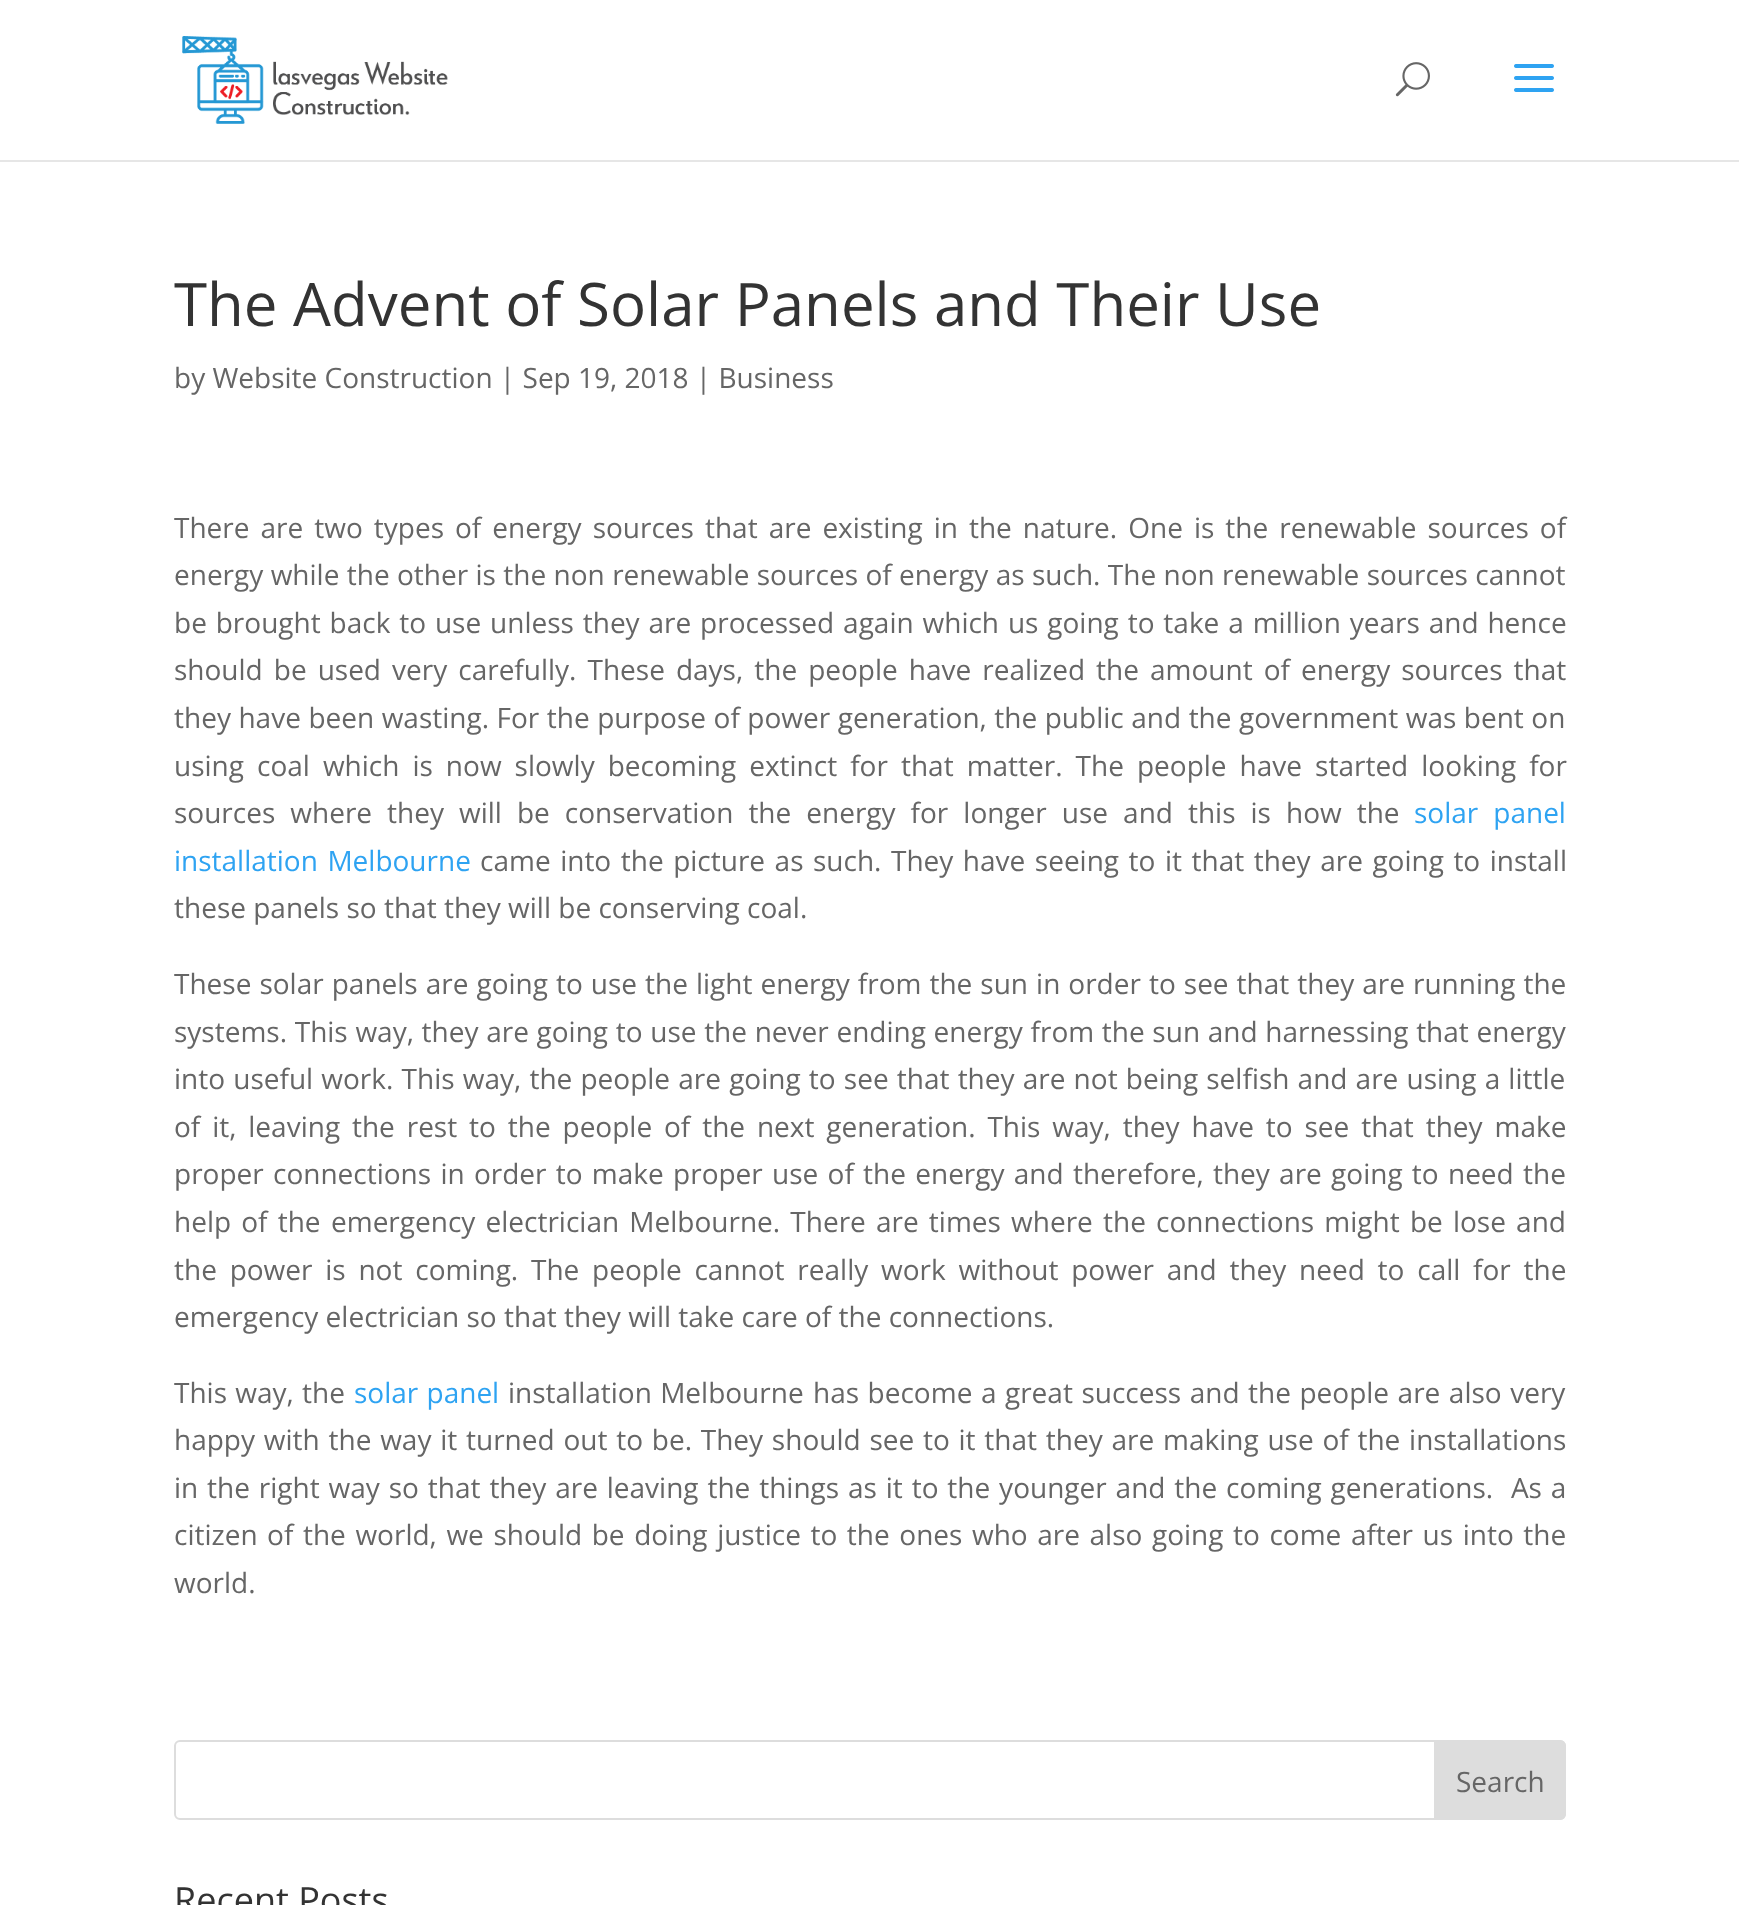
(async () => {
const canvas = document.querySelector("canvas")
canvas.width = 1739
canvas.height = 1905
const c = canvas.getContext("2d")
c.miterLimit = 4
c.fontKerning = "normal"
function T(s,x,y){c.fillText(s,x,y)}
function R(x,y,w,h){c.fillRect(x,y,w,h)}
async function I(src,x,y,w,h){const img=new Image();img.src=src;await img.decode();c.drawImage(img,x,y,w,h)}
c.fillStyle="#fff"
R(0,0,1739,1905)
c.fillStyle="#e6e6e6"
R(0,160,1739,2)
await I("1.png",182,36,266,88)
await I("2.png",1395,62,35,35)
await I("3.png",1514,64,40,28)
c.font="60px Open Sans"
c.fillStyle="#333"
T("The Advent of Solar Panels and Their Use",174,326)
c.font="28px Open Sans"
c.fillStyle="#666"
T("by Website Construction | Sep 19, 2018 | Business",174,388)
c.wordSpacing="3.75px"
T("There are two types of energy sources that are existing in the nature. One is the renewable sources of",174,538)
c.wordSpacing="0.1px"
T("energy while the other is the non renewable sources of energy as such. The non renewable sources cannot",174,585)
c.wordSpacing="1.6px"
T("be brought back to use unless they are processed again which us going to take a million years and hence",174,633)
c.wordSpacing="3.75px"
T("should be used very carefully. These days, the people have realized the amount of energy sources that",174,680)
c.wordSpacing="0.25px"
T("they have been wasting. For the purpose of power generation, the public and the government was bent on",174,728)
c.wordSpacing="5.75px"
T("using coal which is now slowly becoming extinct for that matter. The people have started looking for",174,776)
c.wordSpacing="7.75px"
T("sources where they will be conservation the energy for longer use and this is how the",174,823)
c.fillStyle="#2ea3f2"
T("solar panel",1414,823)
c.wordSpacing="2.25px"
T("installation Melbourne",174,871)
c.fillStyle="#666"
T("came into the picture as such. They have seeing to it that they are going to install",480,871)
c.wordSpacing="0px"
T("these panels so that they will be conserving coal.",174,918)
c.wordSpacing="0.75px"
T("These solar panels are going to use the light energy from the sun in order to see that they are running the",174,994)
c.wordSpacing="0.4px"
T("systems. This way, they are going to use the never ending energy from the sun and harnessing that energy",174,1042)
c.wordSpacing="0.9px"
T("into useful work. This way, the people are going to see that they are not being selfish and are using a little",174,1089)
c.wordSpacing="4.6px"
T("of it, leaving the rest to the people of the next generation. This way, they have to see that they make",174,1137)
c.wordSpacing="2px"
T("proper connections in order to make proper use of the energy and therefore, they are going to need the",174,1184)
c.wordSpacing="2.9px"
T("help of the",174,1232)
T("emergency electrician Melbourne. There are times where the connections might be lose and",331,1232)
c.wordSpacing="5.5px"
T("the power is not coming. The people cannot really work without power and they need to call for the",174,1280)
c.wordSpacing="0px"
T("emergency electrician so that they will take care of the connections.",174,1327)
c.wordSpacing="1px"
T("This way, the",174,1403)
c.fillStyle="#2ea3f2"
T("solar panel",354,1403)
c.fillStyle="#666"
T("installation Melbourne",508,1403)
c.wordSpacing="1.25px"
T("has become a great success and the people are also very",813,1403)
c.wordSpacing="1.5px"
T("happy with the way it turned out to be. They should see to it that they are making use of the installations",174,1450)
c.wordSpacing="1.6px"
T("in the right way so that they are leaving the things as it to the younger and the coming generations.  As a",174,1498)
c.wordSpacing="2.3px"
T("citizen of the world, we should be doing justice to the ones who are also going to come after us into the",174,1545)
c.wordSpacing="0px"
T("world.",174,1593)
c.beginPath()
c.roundRect(175,1741,1390,78,5)
c.strokeStyle="#ddd"
c.lineWidth=2
c.stroke()
c.fillStyle="#ddd"
c.beginPath()
c.roundRect(1435,1741,130,78,[0,5,5,0])
c.fill()
c.stroke()
c.fillStyle="#666"
T("Search",1456,1792)
c.font="36px Open Sans"
c.fillStyle="#333"
T("Recent Posts",174,1913)
})()
